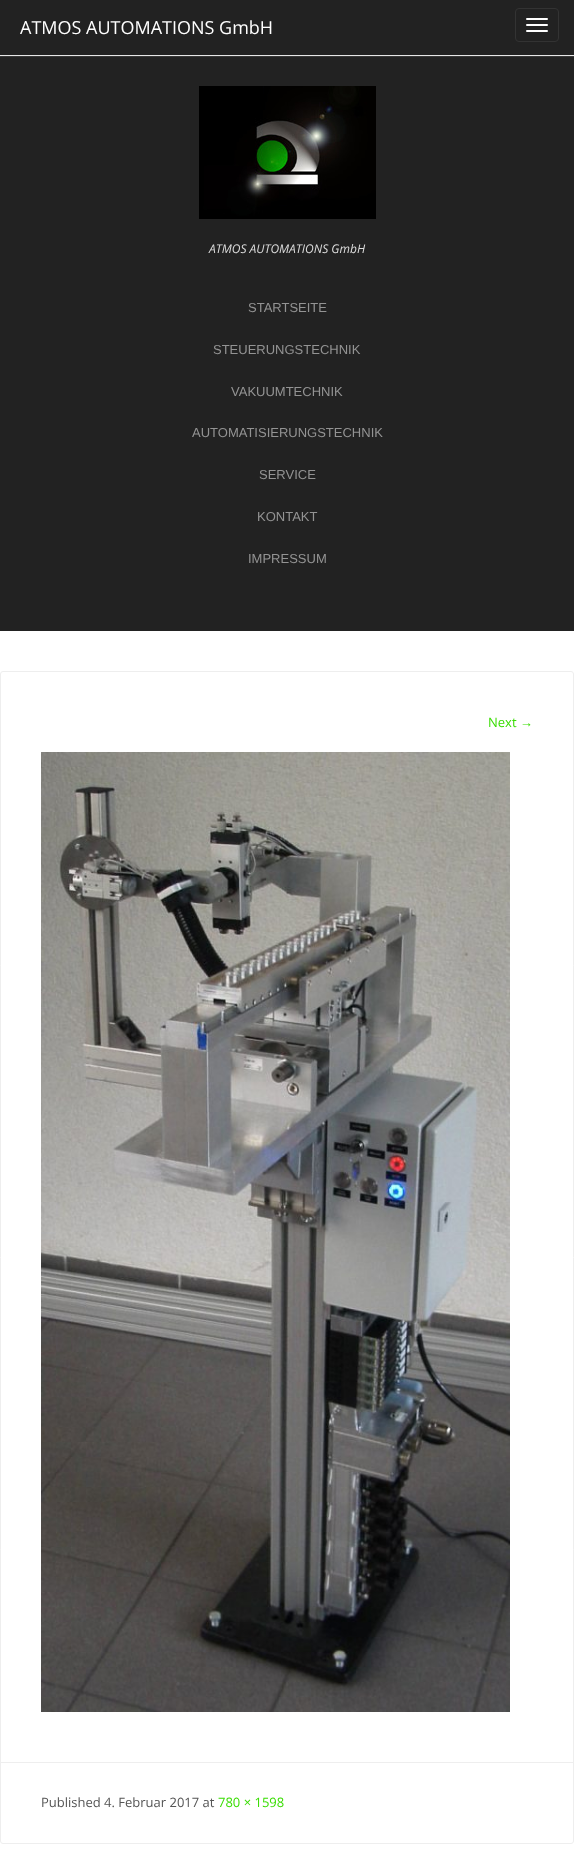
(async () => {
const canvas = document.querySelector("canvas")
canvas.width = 574
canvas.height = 1854
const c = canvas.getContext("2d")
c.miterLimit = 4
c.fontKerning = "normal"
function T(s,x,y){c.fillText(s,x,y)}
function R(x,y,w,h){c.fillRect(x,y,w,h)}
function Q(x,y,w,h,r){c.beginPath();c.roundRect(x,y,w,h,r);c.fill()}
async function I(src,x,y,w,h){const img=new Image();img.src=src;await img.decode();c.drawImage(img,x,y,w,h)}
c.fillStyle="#222"
R(0,0,574,1854)
c.font="18px Open Sans"
c.fillStyle="#fff"
T("ATMOS AUTOMATIONS GmbH",20,34)
c.beginPath()
c.roundRect(515.5,8.5,43,33,3.5)
c.strokeStyle="#333"
c.stroke()
Q(526,18,22,2,1)
Q(526,24,22,2,1)
Q(526,30,22,2,1)
c.fillStyle="#383838"
R(0,56,574,1)
c.fillStyle="#e7e7e7"
R(0,55,574,1)
await I("1.png",199,86,177,133)
c.font="italic 12px Open Sans"
c.fillStyle="#dcdcdc"
T("ATMOS AUTOMATIONS GmbH",209,253)
c.font="13px Liberation Sans"
c.fillStyle="#939393"
T("STARTSEITE",248,312)
T("STEUERUNGSTECHNIK",213,354)
T("VAKUUMTECHNIK",231,396)
T("AUTOMATISIERUNGSTECHNIK",192,437)
T("SERVICE",259,479)
T("KONTAKT",257,521)
T("IMPRESSUM",248,563)
c.fillStyle="#fff"
R(0,631,574,1223)
c.beginPath()
c.roundRect(.5,671.5,573,1172,2.5)
c.strokeStyle="#eee"
c.stroke()
c.font="13px Open Sans"
c.fillStyle="#3add04"
T("Next",488,727)
c.font="13px Liberation Sans"
T("→",520,727)
await I("2.png",41,752,469,960)
c.fillStyle="#eee"
R(1,1762,572,1)
c.font="13px Open Sans"
c.fillStyle="#555"
T("Published 4. Februar 2017 at",41,1807)
c.fillStyle="#3add04"
T("780 × 1598",218,1807)
})()
